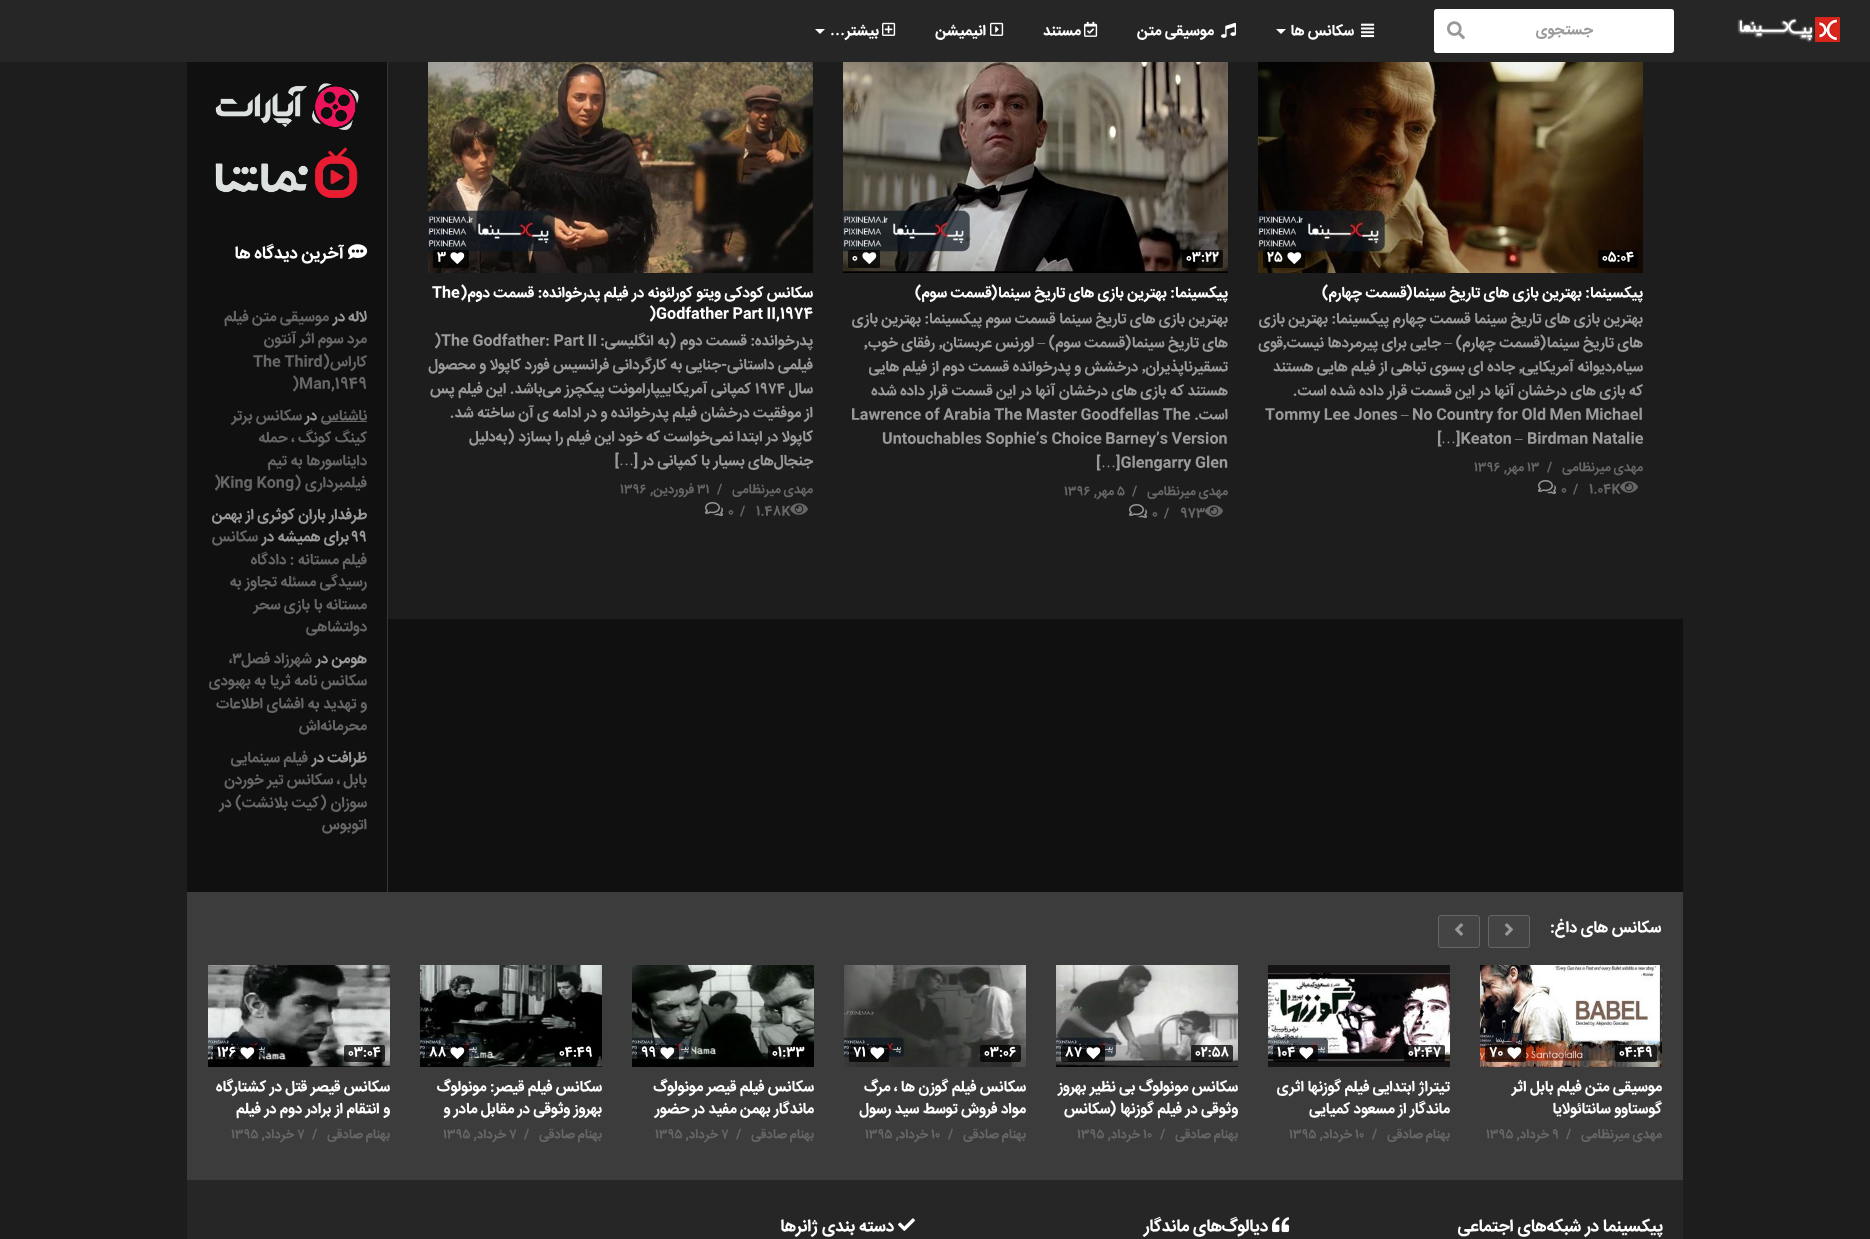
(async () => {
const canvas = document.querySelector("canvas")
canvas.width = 1870
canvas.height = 1239
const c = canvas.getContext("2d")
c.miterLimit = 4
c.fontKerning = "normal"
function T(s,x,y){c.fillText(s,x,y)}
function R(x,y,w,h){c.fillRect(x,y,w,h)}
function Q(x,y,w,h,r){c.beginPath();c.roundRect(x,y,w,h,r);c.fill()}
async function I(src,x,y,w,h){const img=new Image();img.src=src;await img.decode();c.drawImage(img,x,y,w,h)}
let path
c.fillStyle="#1d1d1d"
R(0,0,1870,1239)
c.fillStyle="#262626"
R(0,0,1870,62)
await I("1.png",1737,17,103,25)
c.fillStyle="#fff"
Q(1434,9,240,44,3)
c.beginPath()
c.roundRect(1435,10,238,42,2)
c.strokeStyle="#ffffff33"
c.lineWidth=2
c.stroke()
c.direction="rtl"
c.font="bold 15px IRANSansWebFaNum"
c.fillStyle="#9a9a9a"
T("جستجوی",1593,34)
await I("2.png",1447,21,18,19)
await I("3.png",1361,23,14,15)
c.fillStyle="#fff"
T("سکانس ها",1354,35)
path = new Path2D("M1276 29h10l-5 5z")
c.fill(path)
await I("4.png",1221,22,15,16)
T("موسیقی متن",1214,35)
await I("5.png",1084,21,14,16)
T("مستند",1081,35)
await I("6.png",990,22,14,14)
T("انیمیشن",986,35)
await I("7.png",882,22,14,14)
T("بیشتر",879,35)
c.font="bold 15px Liberation Serif"
T("…",845,35)
path = new Path2D("M815 29h10l-5 5z")
c.fill(path)
c.fillStyle="#101010"
R(187,62,1496,830)
c.fillStyle="#1d1d1d"
R(388,62,1295,557)
await I("8.png",1258,62,385,211)
c.fillStyle="#000000bf"
Q(1598,250,40,18,2)
c.direction="ltr"
c.font="bold 13px IRANSansWebFaNum"
c.fillStyle="#fff"
T("05:04",1602,261)
c.fillStyle="#000000bf"
Q(1263,250,42,18,2)
await I("9.png",1287,252,15,12)
c.fillStyle="#fff"
T("25",1267,261)
c.direction="rtl"
c.font="bold 15px IRANSansWebFaNum"
T("پیکسینما: بهترین بازی های تاریخ سینما(قسمت چهارم)",1643,297)
c.fillStyle="#9a9a9a"
T("بهترین بازی های تاریخ سینما قسمت چهارم پیکسینما: بهترین بازی",1643,323)
T("های تاریخ سینما(قسمت چهارم)",1643,347)
c.font="15px Liberation Serif"
T("–",1452,347)
c.font="bold 15px IRANSansWebFaNum"
T("جایی برای پیرمردها نیست",1441,347)
T("قوی",1283,347)
c.direction="ltr"
T("٬",1283,347)
c.direction="rtl"
T("سیاه",1643,371)
T("دیوانه آمریکایی",1612,371)
c.direction="ltr"
T("٬",1612,371)
T("٬",1519,371)
c.direction="rtl"
T("جاده ای بسوی تباهی از فیلم هایی هستند",1515,371)
T("که بازی های درخشان آنها در این قسمت قرار داده شده است.",1643,395)
c.direction="ltr"
T("No Country for Old Men Michael",1412,419)
c.font="15px Liberation Serif"
T("–",1401,419)
c.font="bold 15px IRANSansWebFaNum"
T("Tommy Lee Jones",1265,419)
T("Birdman Natalie",1527,443)
c.font="15px Liberation Serif"
T("–",1515,443)
c.font="bold 15px IRANSansWebFaNum"
T("]Keaton",1456,443)
T("[",1437,443)
c.font="15px Liberation Serif"
T("…",1441,443)
c.direction="rtl"
c.font="bold 13px IRANSansWebFaNum"
c.fillStyle="#666"
T("مهدی میرنظامی",1643,471)
c.direction="ltr"
T("/",1547,471)
T("۱۳",1527,471)
c.direction="rtl"
T("مهر,",1524,471)
c.direction="ltr"
T("۱۳۹۶",1474,471)
await I("10.png",1620,481,18,12)
T("1.04K",1589,493)
T("/",1573,493)
T("0",1561,493)
await I("11.png",1538,480,18,14)
await I("12.png",843,62,385,211)
c.fillStyle="#000000bf"
Q(1182,250,41,18,2)
c.fillStyle="#fff"
T("03:22",1186,261)
c.fillStyle="#000000bf"
Q(848,250,32,18,2)
await I("13.png",862,252,15,12)
c.fillStyle="#fff"
T("0",852,261)
c.direction="rtl"
c.font="bold 15px IRANSansWebFaNum"
T("پیکسینما: بهترین بازی های تاریخ سینما(قسمت سوم)",1228,297)
c.fillStyle="#9a9a9a"
T("بهترین بازی های تاریخ سینما قسمت سوم پیکسینما: بهترین بازی",1228,323)
T("های تاریخ سینما(قسمت سوم)",1228,347)
c.font="15px Liberation Serif"
T("–",1045,347)
c.direction="ltr"
c.font="bold 15px IRANSansWebFaNum"
T("٬",939,347)
c.direction="rtl"
T("لورنس عربستان",1034,347)
T("رفقای خوب",935,347)
c.direction="ltr"
T("٬",864,347)
T("٬",1142,371)
c.direction="rtl"
T("تسقیرناپذیران",1228,371)
T("درخشش و پدرخوانده قسمت دوم از فیلم هایی",1138,371)
T("هستند که بازی های درخشان آنها در این قسمت قرار داده شده",1228,395)
T("است.",1228,419)
c.direction="ltr"
T("Lawrence of Arabia The Master Goodfellas The",851,419)
T("Untouchables Sophie’s Choice Barney’s Version",882,443)
T("]Glengarry Glen",1116,467)
c.font="15px Liberation Serif"
T("…",1101,467)
c.font="bold 15px IRANSansWebFaNum"
T("[",1096,467)
c.direction="rtl"
c.font="bold 13px IRANSansWebFaNum"
c.fillStyle="#666"
T("مهدی میرنظامی",1228,495)
c.direction="ltr"
T("/",1132,495)
T("۵",1117,495)
c.direction="rtl"
T("مهر,",1114,495)
c.direction="ltr"
T("۱۳۹۶",1064,495)
await I("10.png",1205,505,18,12)
T("973",1180,517)
T("/",1164,517)
T("0",1152,517)
await I("11.png",1129,504,18,14)
await I("14.png",428,62,385,211)
c.fillStyle="#000000bf"
Q(433,250,36,18,2)
await I("15.png",450,252,15,12)
c.fillStyle="#fff"
T("3",437,261)
c.direction="rtl"
c.font="bold 15px IRANSansWebFaNum"
T("سکانس کودکی ویتو کورلئونه در فیلم پدرخوانده: قسمت دوم(",813,297)
c.direction="ltr"
T("The",432,297)
T("Godfather Part II,1974",656,318)
T(")",649,318)
c.direction="rtl"
c.fillStyle="#9a9a9a"
T("پدرخوانده: قسمت دوم (به انگلیسی:",813,345)
c.direction="ltr"
T(")",434,345)
T("The Godfather: Part II",441,345)
c.direction="rtl"
T("فیلمی داستانی-جنایی به کارگردانی فرانسیس فورد کاپولا و محصول",813,369)
T("سال",813,393)
c.direction="ltr"
T("۱۹۷۴",755,393)
c.direction="rtl"
T("کمپانی آمریکاییپارامونت پیکچرز می‌باشد. این فیلم پس",751,393)
T("از موفقیت درخشان فیلم پدرخوانده و در ادامه ی آن ساخته شد.",813,417)
T("کاپولا در ابتدا نمی‌خواست که خود این فیلم را بسازد (به‌دلیل",813,441)
T("جنجال‌های بسیار با کمپانی در [",813,465)
c.font="15px Liberation Serif"
T("…",634,465)
c.font="bold 15px IRANSansWebFaNum"
T("]",619,465)
c.font="bold 13px IRANSansWebFaNum"
c.fillStyle="#666"
T("مهدی میرنظامی",813,493)
c.direction="ltr"
T("/",717,493)
T("۳۱",697,493)
c.direction="rtl"
T("فروردین,",694,493)
c.direction="ltr"
T("۱۳۹۶",620,493)
await I("10.png",790,503,18,12)
T("1.48K",756,515)
T("/",740,515)
T("0",728,515)
await I("11.png",705,502,18,14)
c.fillStyle="#363636"
R(387,62,1,830)
await I("16.png",215,83,144,47)
await I("17.png",215,147,143,51)
await I("18.png",348,244,20,15)
c.direction="rtl"
c.font="bold 17px IRANSansWebFaNum"
c.fillStyle="#fff"
T("آخرین دیدگاه ها",344,258)
c.font="bold 15px IRANSansWebFaNum"
c.fillStyle="#9a9a9a"
T("لاله",367,321)
T("در",345,321)
c.fillStyle="#666"
T("موسیقی متن فیلم",329,321)
T("مرد سوم اثر آنتون",367,343)
T("کاراس(",367,366)
c.direction="ltr"
T("The Third",253,366)
T("Man,1949",299,388)
T(")",292,388)
R(321,421,46,1)
c.direction="rtl"
T("ناشناس",367,420)
c.fillStyle="#9a9a9a"
T("در",317,420)
c.fillStyle="#666"
T("سکانس برتر",302,420)
T("کینگ کونگ ، حمله",367,442)
T("دایناسورها به تیم",367,465)
T("فیلمبرداری (",367,487)
c.direction="ltr"
T("King Kong",220,487)
T(")",214,487)
c.direction="rtl"
c.fillStyle="#9a9a9a"
T("طرفدار باران کوثری از بهمن",367,519)
c.direction="ltr"
T("۹۹",352,541)
c.direction="rtl"
T("برای همیشه",349,541)
T("در",274,541)
c.fillStyle="#666"
T("سکانس",258,541)
T("فیلم مستانه : دادگاه",367,564)
T("رسیدگی مسئله تجاوز به",367,586)
T("مستانه با بازی سحر",367,609)
T("دولتشاهی",367,631)
c.fillStyle="#9a9a9a"
T("هومن",367,663)
T("در",328,663)
c.direction="ltr"
c.fillStyle="#666"
T("،۳",229,663)
c.direction="rtl"
T("شهرزاد فصل",312,663)
T("سکانس نامه ثریا به بهبودی",367,685)
T("و تهدید به افشای اطلاعات",367,708)
T("محرمانه‌اش",367,730)
c.fillStyle="#9a9a9a"
T("ظرافت",367,762)
T("در",324,762)
c.fillStyle="#666"
T("فیلم سینمایی",308,762)
T("بابل ، سکانس تیر خوردن",367,784)
T("سوزان (کیت بلانشت) در",367,807)
T("اتوبوس",367,829)
c.fillStyle="#3c3c3c"
R(187,892,1496,288)
c.font="bold 16px IRANSansWebFaNum"
c.fillStyle="#fff"
T("سکانس های داغ:",1661,932)
c.fillStyle="#444"
c.beginPath()
c.roundRect(1488.5,915.5,41,32,2.5)
c.fill()
c.strokeStyle="#666"
c.lineWidth=1
c.stroke()
await I("19.png",1505,923,8,13)
c.beginPath()
c.roundRect(1438.5,915.5,41,32,2.5)
c.fill()
c.stroke()
await I("20.png",1455,923,8,13)
await I("21.png",1480,965,182,102)
c.fillStyle="#000000bf"
Q(1615,1045,42,17,2)
c.direction="ltr"
c.font="bold 13px IRANSansWebFaNum"
c.fillStyle="#fff"
T("04:49",1619,1056)
c.fillStyle="#000000bf"
Q(1485,1045,41,17,2)
await I("22.png",1507,1047,15,12)
c.fillStyle="#fff"
T("70",1489,1056)
c.direction="rtl"
c.font="bold 15px IRANSansWebFaNum"
T("موسیقی متن فیلم بابل اثر",1662,1091)
T("گوستاوو سانتائولایا",1662,1113)
c.font="bold 13px IRANSansWebFaNum"
c.fillStyle="#666"
T("مهدی میرنظامی",1662,1138)
c.direction="ltr"
T("/",1566,1138)
T("۹",1552,1138)
c.direction="rtl"
T("خرداد,",1549,1138)
c.direction="ltr"
T("۱۳۹۵",1486,1138)
await I("23.png",1268,965,182,102)
c.fillStyle="#000000bf"
Q(1404,1045,41,17,2)
c.fillStyle="#fff"
T("02:47",1408,1056)
c.fillStyle="#000000bf"
Q(1273,1045,45,17,2)
await I("24.png",1299,1047,15,12)
c.fillStyle="#fff"
T("104",1277,1056)
c.direction="rtl"
c.font="bold 15px IRANSansWebFaNum"
T("تیتراژ ابتدایی فیلم گوزنها اثری",1450,1091)
T("ماندگار از مسعود کمیایی",1450,1113)
c.font="bold 13px IRANSansWebFaNum"
c.fillStyle="#666"
T("بهنام صادقی",1450,1138)
c.direction="ltr"
T("/",1372,1138)
T("۱۰",1355,1138)
c.direction="rtl"
T("خرداد,",1352,1138)
c.direction="ltr"
T("۱۳۹۵",1289,1138)
await I("25.png",1056,965,182,102)
c.fillStyle="#000000bf"
Q(1191,1045,42,17,2)
c.fillStyle="#fff"
T("02:58",1195,1056)
c.fillStyle="#000000bf"
Q(1061,1045,44,17,2)
await I("26.png",1086,1047,15,12)
c.fillStyle="#fff"
T("87",1065,1056)
c.direction="rtl"
c.font="bold 15px IRANSansWebFaNum"
T("سکانس مونولوگ بی نظیر بهروز",1238,1091)
T("وثوقی در فیلم گوزنها (سکانس",1238,1113)
c.font="bold 13px IRANSansWebFaNum"
c.fillStyle="#666"
T("بهنام صادقی",1238,1138)
c.direction="ltr"
T("/",1160,1138)
T("۱۰",1143,1138)
c.direction="rtl"
T("خرداد,",1140,1138)
c.direction="ltr"
T("۱۳۹۵",1077,1138)
await I("27.png",844,965,182,102)
c.fillStyle="#000000bf"
Q(980,1045,41,17,2)
c.fillStyle="#fff"
T("03:06",984,1056)
c.fillStyle="#000000bf"
Q(849,1045,40,17,2)
await I("28.png",870,1047,15,12)
c.fillStyle="#fff"
T("71",853,1056)
c.direction="rtl"
c.font="bold 15px IRANSansWebFaNum"
T("سکانس فیلم گوزن ها ، مرگ",1026,1091)
T("مواد فروش توسط سید رسول",1026,1113)
c.font="bold 13px IRANSansWebFaNum"
c.fillStyle="#666"
T("بهنام صادقی",1026,1138)
c.direction="ltr"
T("/",948,1138)
T("۱۰",931,1138)
c.direction="rtl"
T("خرداد,",928,1138)
c.direction="ltr"
T("۱۳۹۵",865,1138)
await I("29.png",632,965,182,102)
c.fillStyle="#000000bf"
Q(768,1045,41,17,2)
c.fillStyle="#fff"
T("01:33",772,1056)
c.fillStyle="#000000bf"
Q(637,1045,42,17,2)
await I("30.png",660,1047,15,12)
c.fillStyle="#fff"
T("99",641,1056)
c.direction="rtl"
c.font="bold 15px IRANSansWebFaNum"
T("سکانس فیلم قیصر مونولوگ",814,1091)
T("ماندگار بهمن مفید در حضور",814,1113)
c.font="bold 13px IRANSansWebFaNum"
c.fillStyle="#666"
T("بهنام صادقی",814,1138)
c.direction="ltr"
T("/",736,1138)
T("۷",721,1138)
c.direction="rtl"
T("خرداد,",718,1138)
c.direction="ltr"
T("۱۳۹۵",655,1138)
await I("31.png",420,965,182,102)
c.fillStyle="#000000bf"
Q(555,1045,42,17,2)
c.fillStyle="#fff"
T("04:49",559,1056)
c.fillStyle="#000000bf"
Q(425,1045,44,17,2)
await I("32.png",450,1047,15,12)
c.fillStyle="#fff"
T("88",429,1056)
c.direction="rtl"
c.font="bold 15px IRANSansWebFaNum"
T("سکانس فیلم قیصر: مونولوگ",602,1091)
T("بهروز وثوقی در مقابل مادر و",602,1113)
c.font="bold 13px IRANSansWebFaNum"
c.fillStyle="#666"
T("بهنام صادقی",602,1138)
c.direction="ltr"
T("/",524,1138)
T("۷",509,1138)
c.direction="rtl"
T("خرداد,",506,1138)
c.direction="ltr"
T("۱۳۹۵",443,1138)
await I("33.png",208,965,182,102)
c.fillStyle="#000000bf"
Q(344,1045,41,17,2)
c.fillStyle="#fff"
T("03:04",348,1056)
c.fillStyle="#000000bf"
Q(213,1045,46,17,2)
await I("34.png",240,1047,15,12)
c.fillStyle="#fff"
T("126",217,1056)
c.direction="rtl"
c.font="bold 15px IRANSansWebFaNum"
T("سکانس قیصر قتل در کشتارگاه",390,1091)
T("و انتقام از برادر دوم در فیلم",390,1113)
c.font="bold 13px IRANSansWebFaNum"
c.fillStyle="#666"
T("بهنام صادقی",390,1138)
c.direction="ltr"
T("/",312,1138)
T("۷",297,1138)
c.direction="rtl"
T("خرداد,",294,1138)
c.direction="ltr"
T("۱۳۹۵",231,1138)
c.fillStyle="#262626"
R(187,1180,1496,59)
c.direction="rtl"
c.font="bold 17px IRANSansWebFaNum"
c.fillStyle="#fff"
T("پیکسینما در شبکه‌های اجتماعی",1663,1231)
await I("35.png",1272,1217,17,16)
T("دیالوگ‌های ماندگار",1268,1231)
await I("36.png",898,1218,17,13)
T("دسته بندی ژانرها",894,1231)
})()
